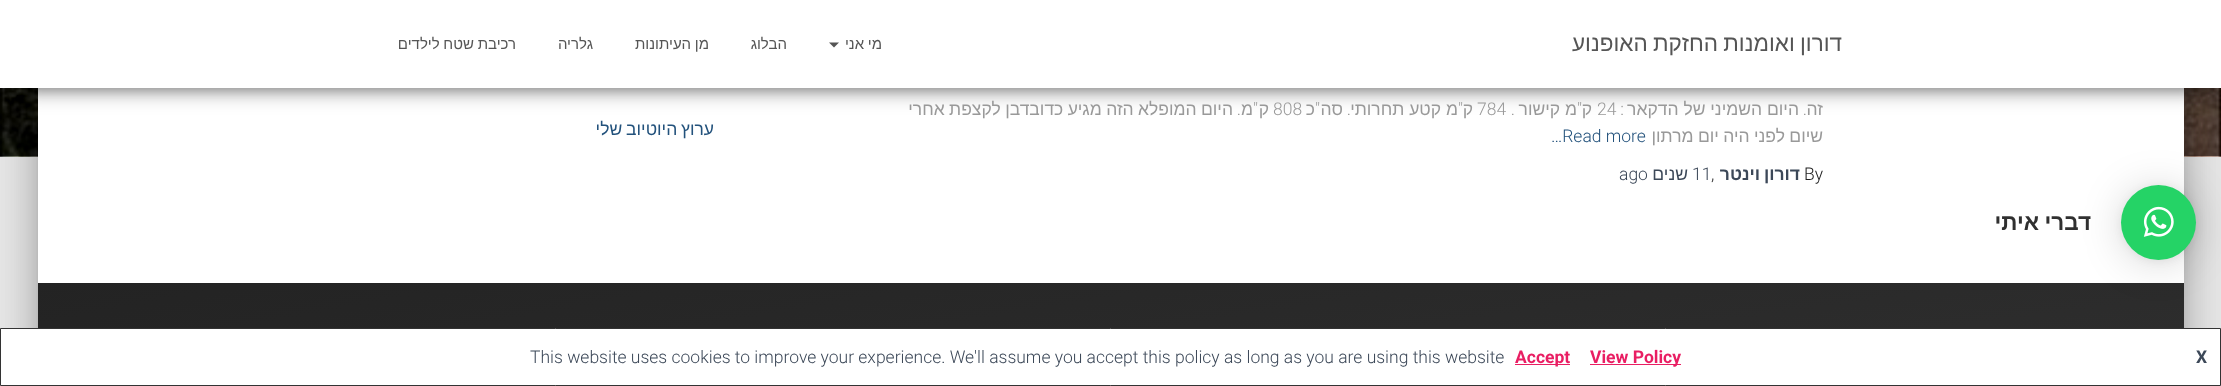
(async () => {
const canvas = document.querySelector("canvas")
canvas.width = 2221
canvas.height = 386
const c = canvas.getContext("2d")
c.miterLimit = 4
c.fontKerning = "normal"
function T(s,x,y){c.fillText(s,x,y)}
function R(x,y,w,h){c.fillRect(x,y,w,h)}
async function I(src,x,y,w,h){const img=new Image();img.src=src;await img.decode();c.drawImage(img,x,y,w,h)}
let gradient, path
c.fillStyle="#e5e5e5"
R(0,0,2221,386)
await I("1.png",0,88,2221,69)
c.fillStyle="#00000033"
c.filter="blur(6px)"
c.beginPath()
c.roundRect(44,-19,2134,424,1)
c.fill()
c.filter="none"
c.fillStyle="#0000001f"
c.filter="blur(19px)"
c.beginPath()
c.roundRect(31,-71,2159,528,14)
c.fill()
c.filter="none"
c.fillStyle="#00000024"
c.filter="blur(15px)"
c.beginPath()
c.roundRect(35,-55,2151,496,10)
c.fill()
c.filter="none"
c.fillStyle="#fff"
R(38,88,2146,195)
c.fillStyle="#00000033"
c.filter="blur(6px)"
c.beginPath()
c.rect(6,16,2209,75)
c.fill()
c.filter="none"
c.fillStyle="#0000001f"
c.filter="blur(12.5px)"
c.beginPath()
c.rect(0,4,2221,87)
c.fill()
c.filter="none"
c.fillStyle="#0000006b"
c.filter="blur(12.5px)"
c.beginPath()
c.rect(15,28,2191,57)
c.fill()
c.filter="none"
c.fillStyle="#fff"
R(0,0,2221,88)
c.wordSpacing="-1px"
c.direction="rtl"
c.font="22.5px Liberation Sans"
c.fillStyle="#555"
T("דורון ואומנות החזקת האופנוע",1842,51)
c.wordSpacing="-0.5px"
c.font="15px Liberation Sans"
T("מי אני",882,49)
path = new Path2D("M829 42.5h10l-5 5z")
c.fill(path)
c.wordSpacing="0px"
T("הבלוג",787,49)
c.wordSpacing="-0.5px"
T("מן העיתונות",709,49)
c.wordSpacing="0px"
T("גלריה",593,49)
c.wordSpacing="-0.5px"
T("רכיבת שטח לילדים",516,49)
c.wordSpacing="0px"
c.font="17.5px Liberation Sans"
c.fillStyle="#999"
T("זה",1823,115)
c.font="300 17.5px Roboto"
T(".",1807,115)
c.font="17.5px Liberation Sans"
T("היום השמיני של הדקאר",1799,115)
c.font="300 17.5px Roboto"
T(":",1624,115)
c.direction="ltr"
T("24",1597,115)
c.direction="rtl"
c.font="17.5px Liberation Sans"
T("ק",1592,115)
c.font="300 17.5px Roboto"
T("\"",1582,115)
c.font="17.5px Liberation Sans"
T("מ קישור",1577,115)
c.font="300 17.5px Roboto"
T(".",1515,115)
c.direction="ltr"
T("784",1477,115)
c.direction="rtl"
c.font="17.5px Liberation Sans"
T("ק",1473,115)
c.font="300 17.5px Roboto"
T("\"",1463,115)
c.font="17.5px Liberation Sans"
T("מ קטע תחרותי",1458,115)
c.font="300 17.5px Roboto"
T(".",1351,115)
c.font="17.5px Liberation Sans"
T("סה",1343,115)
c.font="300 17.5px Roboto"
T("\"",1320,115)
c.font="17.5px Liberation Sans"
T("כ",1315,115)
c.direction="ltr"
c.font="300 17.5px Roboto"
T("808",1273,115)
c.direction="rtl"
c.font="17.5px Liberation Sans"
T("ק",1269,115)
c.font="300 17.5px Roboto"
T("\"",1258,115)
c.font="17.5px Liberation Sans"
T("מ",1253,115)
c.font="300 17.5px Roboto"
T(".",1241,115)
c.wordSpacing="-0.5px"
c.font="17.5px Liberation Sans"
T("היום המופלא הזה מגיע כדובדבן לקצפת אחרי",1233,115)
T("שיום לפני היה יום מרתון",1823,142)
c.wordSpacing="0px"
c.direction="ltr"
c.font="300 17.5px Roboto"
c.fillStyle="#23527c"
T("…Read more",1551,142)
c.fillStyle="#212121"
T("By",1804,180)
c.wordSpacing="-1px"
c.direction="rtl"
c.font="bold 17.5px Liberation Sans"
c.fillStyle="#3c4858"
T("דורון וינטר",1800,180)
c.wordSpacing="0px"
c.direction="ltr"
c.font="300 17.5px Roboto"
c.fillStyle="#212121"
T(",",1711,180)
c.fillStyle="#3c4858"
T("11",1692,180)
c.direction="rtl"
c.font="17.5px Liberation Sans"
T("שנים",1688,180)
c.direction="ltr"
c.font="300 17.5px Roboto"
T("ago",1619,180)
c.wordSpacing="-1px"
c.direction="rtl"
c.font="17.5px Liberation Sans"
c.fillStyle="#23527c"
T("ערוץ היוטיוב שלי",714,135)
gradient = c.createRadialGradient(5940,7354.41,0,5940,7354.41,8347)
gradient.addColorStop(0,"#585858")
gradient.addColorStop(1,"#232323")
c.fillStyle = gradient
c.beginPath()
c.rect(38,283,2146,45)
c.save()
c.clip()
c.scale(1,1623 / 8347)
c.fillRect(0,0,2221,1986)
c.restore()
c.fillStyle="#00000029"
c.filter="blur(20px)"
c.beginPath()
c.roundRect(2121,188,75,75,37.5)
c.fill()
c.filter="none"
c.fillStyle="#0000000f"
c.filter="blur(4px)"
c.beginPath()
c.roundRect(2121,186,75,75,37.5)
c.fill()
c.filter="none"
c.fillStyle="#25d366"
c.beginPath()
c.arc(2158.5,222.5,37.5,0,7)
c.fill()
await I("2.png",2143,206,31,31)
c.font="bold 22.5px Liberation Sans"
c.fillStyle="#303030"
T("דברי איתי",2091,230)
c.fillStyle="#fff"
c.beginPath()
c.rect(.5,328.5,2220,57)
c.fill()
c.strokeStyle="#333"
c.stroke()
c.wordSpacing="0px"
c.direction="ltr"
c.font="bold 17.5px Roboto"
c.fillStyle="#3c4858"
T("X",2196,363)
c.fillStyle="#e91e63"
R(1590,364,91,1)
T("View Policy",1590,363)
R(1515,364,55,1)
T("Accept",1515,363)
c.font="300 17.5px Roboto"
c.fillStyle="#3c4858"
T("This website uses cookies to improve your experience. We'll assume you accept this policy as long as you are using this website",530,363)
})()
